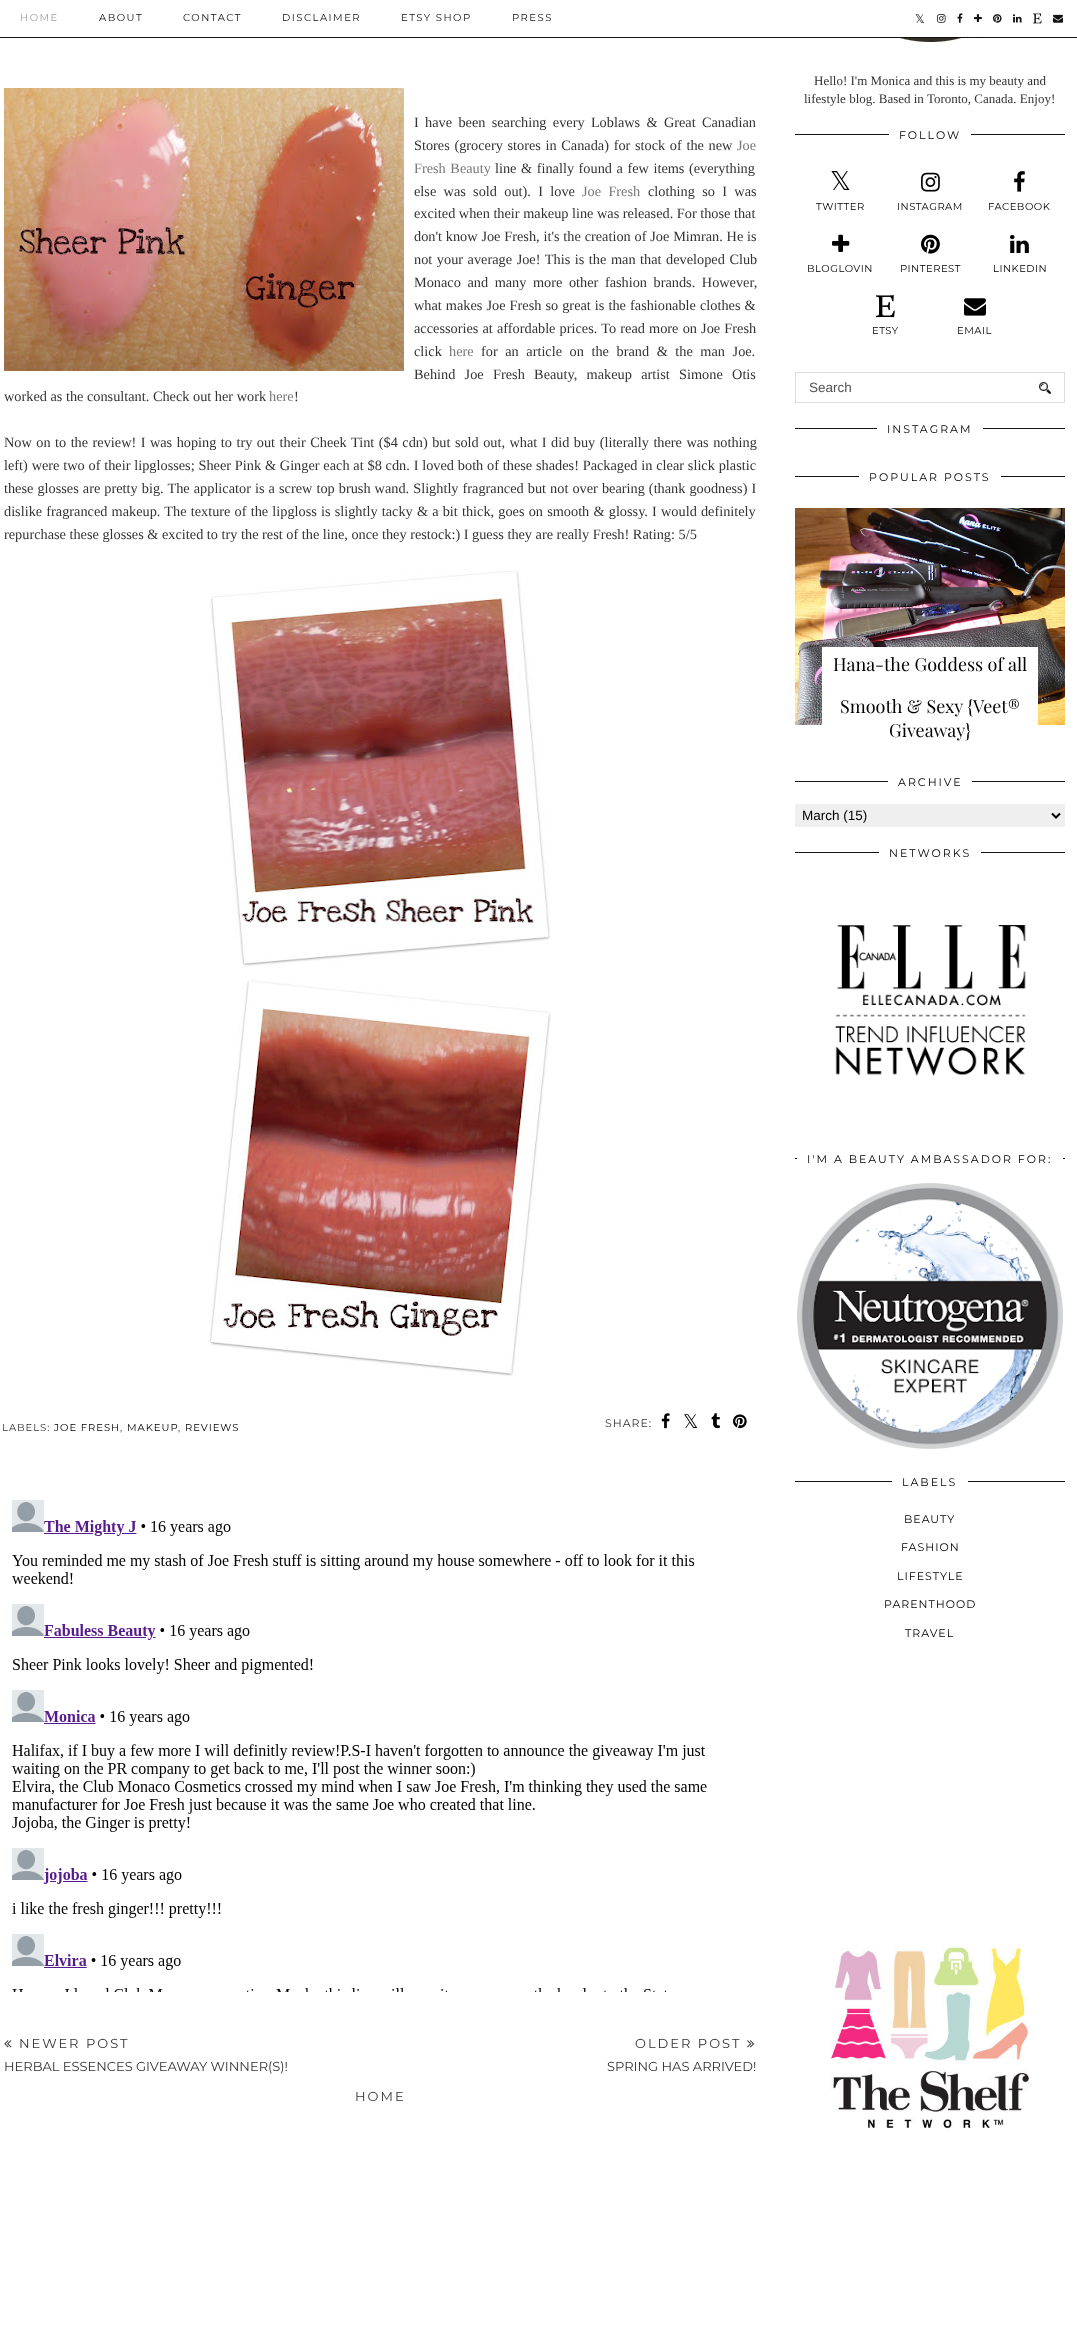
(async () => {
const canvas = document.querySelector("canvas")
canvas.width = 1077
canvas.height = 2348
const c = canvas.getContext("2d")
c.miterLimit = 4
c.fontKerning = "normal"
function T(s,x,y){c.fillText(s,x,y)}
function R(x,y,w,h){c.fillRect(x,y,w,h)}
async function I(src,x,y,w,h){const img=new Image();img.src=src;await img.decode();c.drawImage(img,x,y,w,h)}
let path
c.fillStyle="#fff"
R(0,0,1077,2348)
c.fillStyle="#111"
R(0,37,1077,1)
c.letterSpacing="1.5px"
c.font="100 10px Montserrat"
c.fillStyle="#a0a0a0"
T("HOME",20,21)
c.fillStyle="#121212"
T("ABOUT",99,21)
T("CONTACT",183,21)
T("DISCLAIMER",282,21)
T("ETSY SHOP",401,21)
T("PRESS",512,21)
c.font="12px DejaVu Sans"
T("𝕏",915,23)
await I("1.png",937,14,9,9)
await I("2.png",957,13,6,10)
await I("3.png",974,14,8,8)
await I("4.png",993,14,9,9)
await I("5.png",1013,14,9,9)
await I("6.png",1033,13,9,11)
await I("7.png",1053,14,10,9)
await I("8.png",4,88,400,283)
c.letterSpacing="0px"
c.wordSpacing="2.75px"
c.font="14.3px Liberation Serif"
c.fillStyle="#333"
T("I have been searching every Loblaws & Great Canadian",414,127)
c.wordSpacing="1.1px"
T("Stores (grocery stores in Canada) for stock of the new",414,150)
c.wordSpacing="0px"
c.fillStyle="#777"
T("Joe",737,150)
c.wordSpacing="1px"
T("Fresh Beauty",414,173)
c.fillStyle="#333"
T("line & finally found a few items (everything",495,173)
c.wordSpacing="3.75px"
T("else was sold out). I love",414,196)
c.fillStyle="#777"
T("Joe Fresh",582,196)
c.fillStyle="#333"
T("clothing so I was",648,196)
c.wordSpacing="0px"
T("excited when their makeup line was released. For those that",414,218)
c.wordSpacing="0.25px"
T("don't know Joe Fresh, it's the creation of Joe Mimran. He is",414,241)
c.wordSpacing="1px"
T("not your average Joe! This is the man that developed Club",414,264)
c.wordSpacing="3px"
T("Monaco and many more other fashion brands. However,",414,287)
c.wordSpacing="0.5px"
T("what makes Joe Fresh so great is the fashionable clothes &",414,310)
c.wordSpacing="0.6px"
T("accessories at affordable prices. To read more on Joe Fresh",414,333)
c.wordSpacing="0px"
T("click",414,356)
c.fillStyle="#777"
T("here",449,356)
c.wordSpacing="4px"
c.fillStyle="#333"
T("for an article on the brand & the man Joe.",481,356)
c.wordSpacing="5.75px"
T("Behind Joe Fresh Beauty, makeup artist Simone Otis",414,379)
c.wordSpacing="0px"
T("worked as the consultant. Check out her work",4,401)
c.fillStyle="#777"
T("here",269,401)
c.fillStyle="#333"
T("!",294,401)
c.wordSpacing="0.9px"
T("Now on to the review! I was hoping to try out their Cheek Tint ($4 cdn) but sold out, what I did buy (literally there was nothing",4,447)
c.wordSpacing="0.25px"
T("left) were two of their lipglosses; Sheer Pink & Ginger each at $8 cdn. I loved both of these shades! Packaged in clear slick plastic",4,470)
c.wordSpacing="0.5px"
T("these glosses are pretty big. The applicator is a screw top brush wand. Slightly fragranced but not over bearing (thank goodness) I",4,493)
c.wordSpacing="0.6px"
T("dislike fragranced makeup. The texture of the lipgloss is slightly tacky & a bit thick, goes on smooth & glossy. I would definitely",4,516)
c.wordSpacing="0px"
T("repurchase these glosses & excited to try the rest of the line, once they restock:) I guess they are really Fresh! Rating: 5/5",4,539)
await I("9.png",210,570,340,398)
await I("10.png",208,980,343,396)
c.letterSpacing="1px"
c.font="100 10px Montserrat"
T("LABELS:",2,1431)
c.fillStyle="#000"
T("JOE FRESH",54,1431)
c.fillStyle="#333"
T(",",120,1431)
c.fillStyle="#000"
T("MAKEUP",127,1431)
c.fillStyle="#333"
T(",",178,1431)
c.fillStyle="#000"
T("REVIEWS",185,1431)
c.font="100 11px Montserrat"
c.fillStyle="#333"
T("SHARE:",605,1427)
await I("11.png",661,1413,9,16)
c.font="19px DejaVu Sans"
c.fillStyle="#000"
T("𝕏",683,1428)
await I("12.png",711,1413,10,16)
await I("13.png",733,1414,14,15)
await I("14.png",12,1500,695,492)
await I("15.png",4,2040,8,8)
c.letterSpacing="2px"
c.font="100 13px Montserrat"
c.fillStyle="#333"
T("NEWER POST",19,2048)
c.letterSpacing="0px"
T("HERBAL ESSENCES GIVEAWAY WINNER(S)!",4,2071)
c.letterSpacing="2px"
T("OLDER POST",635,2048)
await I("16.png",747,2040,8,8)
c.letterSpacing="0px"
T("SPRING HAS ARRIVED!",607,2071)
c.letterSpacing="2px"
T("HOME",355,2101)
await I("17.png",837,38,191,4)
c.letterSpacing="0px"
c.font="13px Liberation Serif"
T("Hello! I'm Monica and this is my beauty and",814,85)
T("lifestyle blog. Based in Toronto, Canada. Enjoy!",804,103)
c.fillStyle="#111"
R(795,134,270,1)
c.fillStyle="#fff"
R(889,134,82,1)
c.letterSpacing="2px"
c.font="100 11px Montserrat"
c.fillStyle="#000"
T("FOLLOW",899,139)
c.letterSpacing="0px"
c.font="26px DejaVu Sans"
T("𝕏",830,190)
c.letterSpacing="0.5px"
c.font="100 10px Montserrat"
T("TWITTER",816,210)
await I("18.png",921,172,19,20)
T("INSTAGRAM",897,210)
await I("19.png",1014,171,11,21)
T("FACEBOOK",988,210)
await I("20.png",832,234,18,18)
T("BLOGLOVIN",807,272)
await I("21.png",921,234,19,20)
T("PINTEREST",900,272)
await I("22.png",1010,235,19,18)
T("LINKEDIN",993,272)
await I("23.png",876,295,19,23)
T("ETSY",872,334)
await I("24.png",964,298,22,18)
T("EMAIL",957,334)
c.strokeStyle="#ddd"
c.strokeRect(795.5,372.5,269,30)
await I("25.png",1039,382,12,12)
c.letterSpacing="0px"
c.font="13.5px Liberation Sans"
c.fillStyle="#555"
T("Search",809,392)
c.fillStyle="#111"
R(795,428,270,1)
c.fillStyle="#fff"
R(877,428,106,1)
c.letterSpacing="2px"
c.font="100 11px Montserrat"
c.fillStyle="#000"
T("INSTAGRAM",887,433)
c.fillStyle="#111"
R(795,476,270,1)
c.fillStyle="#fff"
R(859,476,142,1)
c.fillStyle="#000"
T("POPULAR POSTS",869,481)
await I("26.png",795,508,270,217)
c.fillStyle="#fff"
R(822,647,216,78)
c.letterSpacing="0px"
c.font="18px Playfair Display"
c.fillStyle="#000"
T("Hana-the Goddess of all",833,671)
T("Smooth & Sexy {Veet®",840,713)
T("Giveaway}",889,737)
c.fillStyle="#111"
R(795,781,270,1)
c.fillStyle="#fff"
R(888,781,84,1)
c.letterSpacing="2px"
c.font="100 11px Montserrat"
c.fillStyle="#000"
T("ARCHIVE",898,786)
c.fillStyle="#efefef"
R(795,804,270,23)
path = new Path2D("M1052 813.5l4 4l4-4")
c.strokeStyle="#000"
c.lineWidth=2
c.stroke(path)
c.letterSpacing="0px"
c.font="13.5px Liberation Sans"
c.fillStyle="#000"
T("March (15)",802,820)
c.fillStyle="#111"
R(795,852,270,1)
c.fillStyle="#fff"
R(879,852,102,1)
c.letterSpacing="2px"
c.font="100 11px Montserrat"
c.fillStyle="#000"
T("NETWORKS",889,857)
await I("27.png",835,925,191,151)
c.fillStyle="#111"
R(795,1158,270,1)
c.fillStyle="#fff"
R(797,1158,266,1)
c.fillStyle="#000"
T("I'M A BEAUTY AMBASSADOR FOR:",807,1163)
await I("28.png",797,1183,266,266)
c.fillStyle="#111"
R(795,1481,270,1)
c.fillStyle="#fff"
R(892,1481,76,1)
c.fillStyle="#000"
T("LABELS",902,1486)
c.letterSpacing="1px"
T("BEAUTY",904,1523)
T("FASHION",901,1551)
T("LIFESTYLE",897,1580)
T("PARENTHOOD",884,1608)
T("TRAVEL",905,1637)
await I("29.png",830,1947,199,182)
})()
